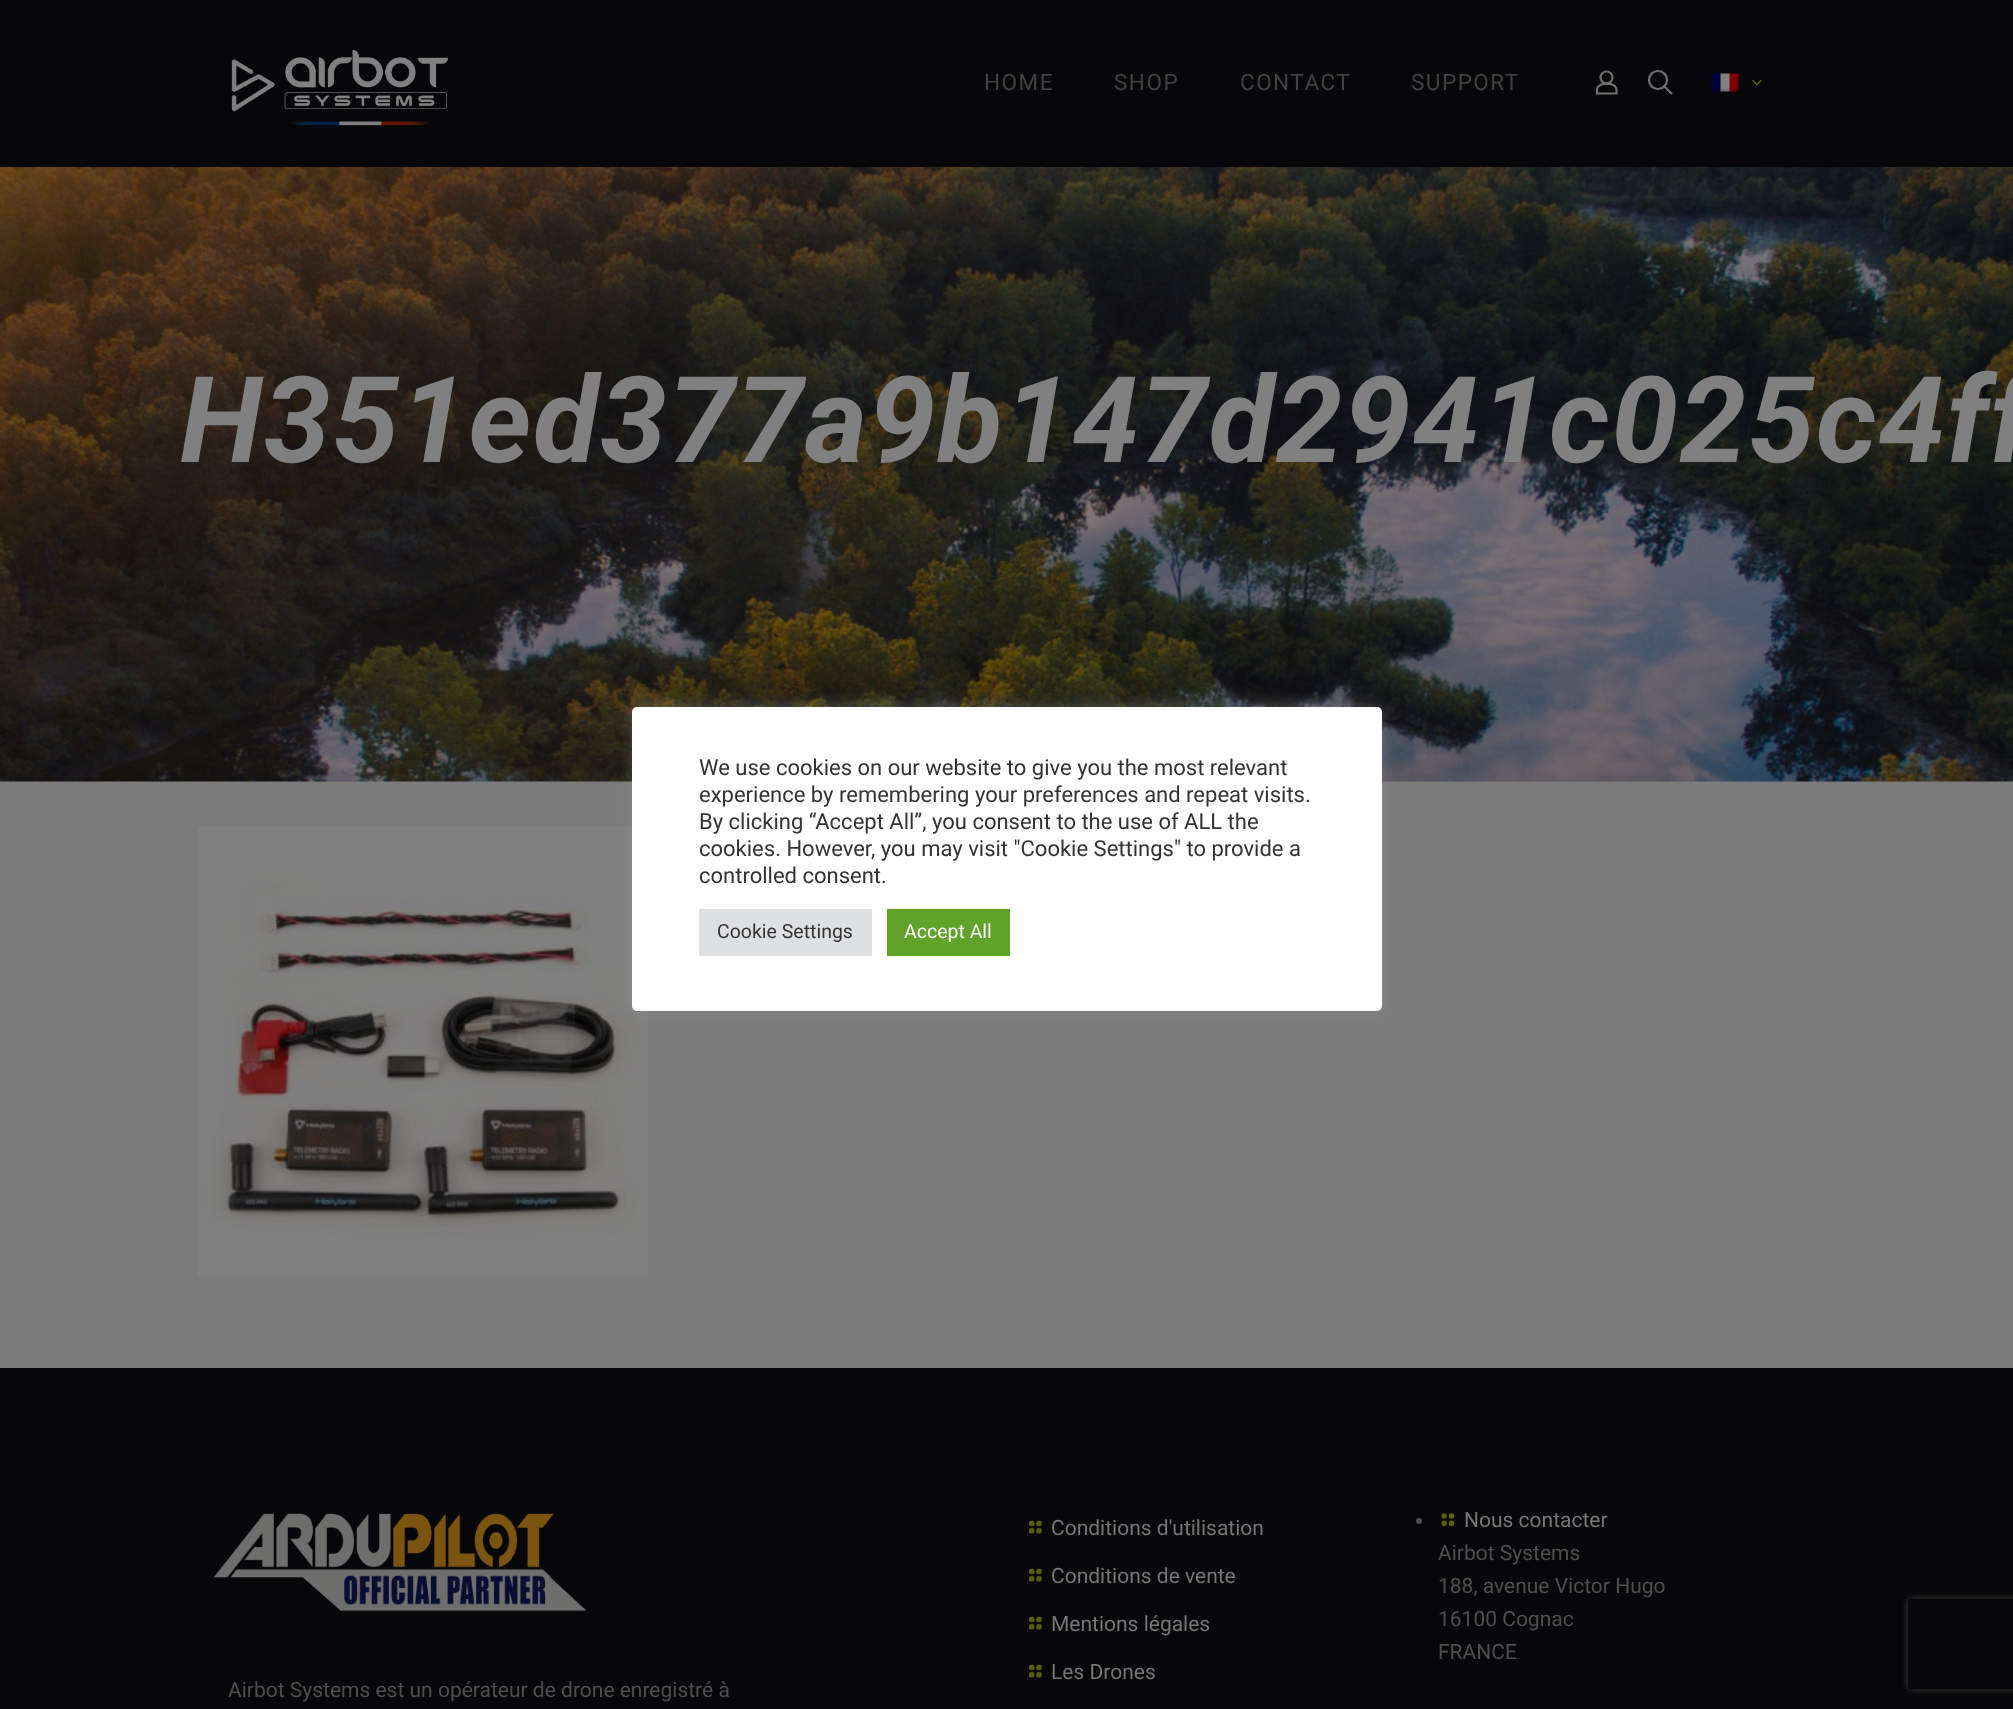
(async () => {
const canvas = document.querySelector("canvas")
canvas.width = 2013
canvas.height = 1709
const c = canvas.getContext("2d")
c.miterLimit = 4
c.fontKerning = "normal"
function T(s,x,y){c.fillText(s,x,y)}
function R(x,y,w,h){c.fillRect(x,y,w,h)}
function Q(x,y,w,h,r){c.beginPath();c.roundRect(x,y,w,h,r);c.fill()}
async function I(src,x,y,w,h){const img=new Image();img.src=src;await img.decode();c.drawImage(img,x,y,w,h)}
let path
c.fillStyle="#7b7b7b"
R(0,0,2013,1709)
await I("1.png",0,167,2013,615)
c.fillStyle="#070709"
R(0,0,2013,167)
await I("2.png",231,50,218,76)
c.letterSpacing="1.5px"
c.font="22.5px Roboto"
c.fillStyle="#414141"
T("HOME",984,90)
T("SHOP",1114,90)
T("CONTACT",1240,90)
T("SUPPORT",1411,90)
c.beginPath()
c.arc(1606.5,77.5,6,0,7)
c.strokeStyle="#707070"
c.lineWidth=2.2
c.stroke()
path = new Path2D("M1616.5 90v3.5h-19.5v-4.5c2-7.5 19.5-7 19.5 1z")
c.stroke(path)
c.beginPath()
c.arc(1658,80,9,0,7)
c.stroke()
path = new Path2D("M1664.5 86.5l7.5 7.5")
c.stroke(path)
await I("3.png",1711,73,28,19)
await I("4.png",1752,79,10,7)
c.font="italic bold 120px Roboto"
c.fillStyle="#808080"
T("H351ed377a9b147d2941c025c4ff",180,462)
await I("5.png",198,826,450,451)
c.fillStyle="#070709"
R(0,1368,2013,341)
await I("6.png",1029,1520,13,14)
c.letterSpacing="0px"
c.font="21px Roboto"
c.fillStyle="#767676"
T("Conditions d'utilisation",1051,1535)
await I("6.png",1029,1568,13,14)
T("Conditions de vente",1051,1583)
await I("6.png",1029,1616,13,14)
T("Mentions légales",1051,1631)
await I("6.png",1029,1664,13,14)
T("Les Drones",1051,1679)
c.fillStyle="#4e4e4e"
c.beginPath()
c.arc(1419,1521,3,0,7)
c.fill()
await I("7.png",1441,1513,14,13)
c.fillStyle="#767676"
T("Nous contacter",1464,1527)
c.fillStyle="#4e4e4e"
T("Airbot Systems",1438,1560)
T("188, avenue Victor Hugo",1438,1593)
T("16100 Cognac",1438,1626)
T("FRANCE",1438,1659)
await I("8.png",213,1513,374,99)
T("Airbot Systems est un opérateur de drone enregistré à",228,1697)
c.fillStyle="#acabab4d"
c.filter="blur(7.5px)"
c.beginPath()
c.roundRect(632,705,750,305,5)
c.fill()
c.filter="none"
c.fillStyle="#fff"
Q(632,707,750,304,5)
c.font="22px Roboto"
c.fillStyle="#333"
T("We use cookies on our website to give you the most relevant",699,775)
T("experience by remembering your preferences and repeat visits.",699,802)
T("By clicking “Accept All”, you consent to the use of ALL the",699,829)
T("cookies. However, you may visit \"Cookie Settings\" to provide a",699,856)
T("controlled consent.",699,883)
c.fillStyle="#dedfe0"
R(699,909,173,47)
c.font="19.5px Roboto"
c.fillStyle="#333"
T("Cookie Settings",717,938)
c.fillStyle="#61a229"
R(887,909,123,47)
c.fillStyle="#fff"
T("Accept All",904,938)
c.save()
path = new Path2D("M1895 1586h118v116h-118zm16 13h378c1.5 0 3 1.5 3 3v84c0 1.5-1.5 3-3 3h-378c-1.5 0-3-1.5-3-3v-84c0-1.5 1.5-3 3-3z")
c.clip(path,"evenodd")
c.fillStyle="#404040"
c.filter="blur(4px)"
c.beginPath()
c.roundRect(1908,1599,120,90,3)
c.fill()
c.filter="none"
c.restore()
})()
